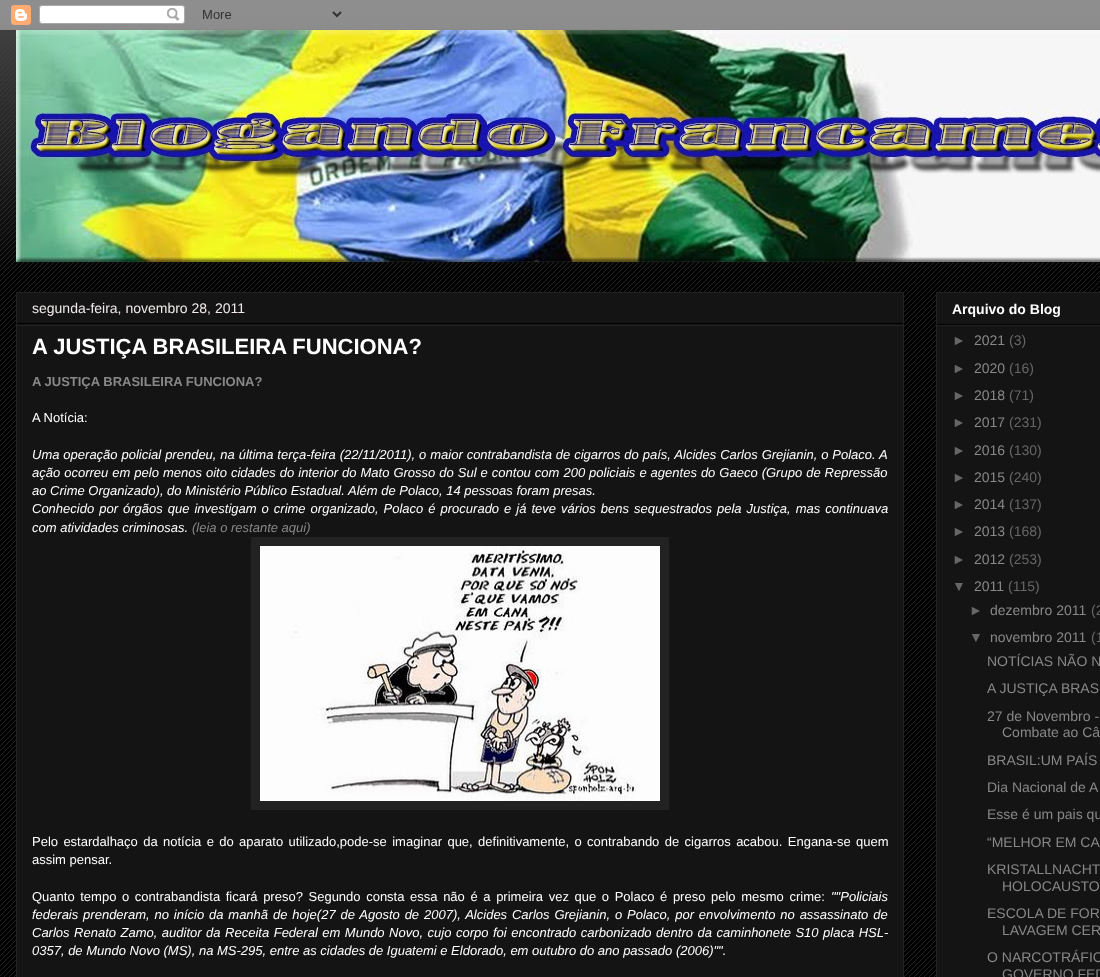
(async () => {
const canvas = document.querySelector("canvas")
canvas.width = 1100
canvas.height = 977
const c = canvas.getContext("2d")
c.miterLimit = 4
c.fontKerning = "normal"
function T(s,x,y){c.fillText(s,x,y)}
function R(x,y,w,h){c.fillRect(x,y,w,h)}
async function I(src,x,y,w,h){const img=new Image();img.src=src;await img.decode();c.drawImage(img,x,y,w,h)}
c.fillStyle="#000"
R(0,0,1100,977)
await I("1.png",0,13,1100,964)
await I("2.png",0,0,1100,268)
await I("3.png",0,0,1100,30)
await I("4.png",16,30,1084,232)
c.fillStyle="#141414"
c.beginPath()
c.rect(16.5,292.5,887,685)
c.fill()
c.strokeStyle="#222"
c.stroke()
c.fillStyle="#000"
R(17,323,886,1)
c.font="14px Liberation Sans"
c.fillStyle="#f2eaea"
T("segunda-feira, novembro 28, 2011",32,313)
c.fillStyle="#222"
R(17,325,886,1)
c.font="bold 22px Liberation Sans"
c.fillStyle="#fff"
T("A JUSTIÇA BRASILEIRA FUNCIONA?",32,354)
c.font="bold 13px Liberation Sans"
c.fillStyle="#888"
T("A JUSTIÇA BRASILEIRA FUNCIONA?",32,386)
c.font="13px Liberation Sans"
c.fillStyle="#fff"
T("A Notícia:",32,422)
c.wordSpacing="0.3px"
c.font="italic 13px Liberation Sans"
T("Uma operação policial prendeu, na última terça-feira (22/11/2011), o maior contrabandista de cigarros do país, Alcides Carlos Grejianin, o Polaco. A",32,459)
c.wordSpacing="0.4px"
T("ação ocorreu em pelo menos oito cidades do interior do Mato Grosso do Sul e contou com 200 policiais e agentes do Gaeco (Grupo de Repressão",32,477)
c.wordSpacing="0px"
T("ao Crime Organizado), do Ministério Público Estadual. Além de Polaco, 14 pessoas foram presas.",32,495)
c.wordSpacing="1.4px"
T("Conhecido por órgãos que investigam o crime organizado, Polaco é procurado e já teve vários bens sequestrados pela Justiça, mas continuava",32,513)
c.wordSpacing="0px"
T("com atividades criminosas.",32,532)
c.fillStyle="#888"
T("(leia o restante aqui)",192,532)
c.fillStyle="#222"
R(251,537,418,273)
await I("5.png",260,546,400,255)
c.wordSpacing="1.75px"
c.font="13px Liberation Sans"
c.fillStyle="#fff"
T("Pelo estardalhaço da notícia e do aparato utilizado,pode-se imaginar que, definitivamente, o contrabando de cigarros acabou. Engana-se quem",32,846)
c.wordSpacing="0px"
T("assim pensar.",32,864)
c.wordSpacing="2px"
T("Quanto tempo o contrabandista ficará preso? Segundo consta essa não é a primeira vez que o Polaco é preso pelo mesmo crime:",32,901)
c.wordSpacing="0px"
c.font="italic 13px Liberation Sans"
T("\"\"Policiais",831,901)
c.wordSpacing="1.25px"
T("federais prenderam, no início da manhã de hoje(27 de Agosto de 2007), Alcides Carlos Grejianin, o Polaco, por envolvimento no assassinato de",32,919)
c.wordSpacing="0.9px"
T("Carlos Renato Zamo, auditor da Receita Federal em Mundo Novo, cujo corpo foi encontrado carbonizado dentro da caminhonete S10 placa HSL-",32,937)
c.wordSpacing="0px"
T("0357, de Mundo Novo (MS), na MS-295, entre as cidades de Iguatemi e Eldorado, em outubro do ano passado (2006)\"\".",32,955)
c.fillStyle="#141414"
c.beginPath()
c.rect(936.5,292.5,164,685)
c.fill()
c.stroke()
c.fillStyle="#000"
R(937,324,163,1)
c.font="bold 14px Liberation Sans"
c.fillStyle="#fff"
T("Arquivo do Blog",952,314)
c.fillStyle="#222"
R(937,325,163,1)
c.font="14px Liberation Sans"
c.fillStyle="#666"
T("►",952,345)
c.fillStyle="#888"
T("2021",974,345)
c.fillStyle="#666"
T("(3)",1009,345)
T("►",952,373)
c.fillStyle="#888"
T("2020",974,373)
c.fillStyle="#666"
T("(16)",1009,373)
T("►",952,400)
c.fillStyle="#888"
T("2018",974,400)
c.fillStyle="#666"
T("(71)",1009,400)
T("►",952,427)
c.fillStyle="#888"
T("2017",974,427)
c.fillStyle="#666"
T("(231)",1009,427)
T("►",952,455)
c.fillStyle="#888"
T("2016",974,455)
c.fillStyle="#666"
T("(130)",1009,455)
T("►",952,482)
c.fillStyle="#888"
T("2015",974,482)
c.fillStyle="#666"
T("(240)",1009,482)
T("►",952,509)
c.fillStyle="#888"
T("2014",974,509)
c.fillStyle="#666"
T("(137)",1009,509)
T("►",952,536)
c.fillStyle="#888"
T("2013",974,536)
c.fillStyle="#666"
T("(168)",1009,536)
T("►",952,564)
c.fillStyle="#888"
T("2012",974,564)
c.fillStyle="#666"
T("(253)",1009,564)
T("▼",952,591)
c.fillStyle="#888"
T("2011",974,591)
c.fillStyle="#666"
T("(115)",1008,591)
T("►",969,615)
c.fillStyle="#888"
T("dezembro 2011",990,615)
c.fillStyle="#666"
T("(2",1091,615)
T("▼",969,642)
c.fillStyle="#888"
T("novembro 2011",990,642)
c.fillStyle="#666"
T("(1",1091,642)
c.fillStyle="#888"
T("NOTÍCIAS NÃO N",987,666)
T("A JUSTIÇA BRAS",987,693)
T("27 de Novembro -",987,721)
T("Combate ao Câ",1002,737)
T("BRASIL:UM PAÍS",987,765)
T("Dia Nacional de A",987,792)
T("Esse é um pais qu",987,819)
T("“MELHOR EM CA",987,847)
T("KRISTALLNACHT",987,874)
T("HOLOCAUSTO",1002,891)
T("ESCOLA DE FOR",987,918)
T("LAVAGEM CER",1002,935)
T("O NARCOTRÁFIC",987,962)
T("GOVERNO FED",1002,979)
})()
